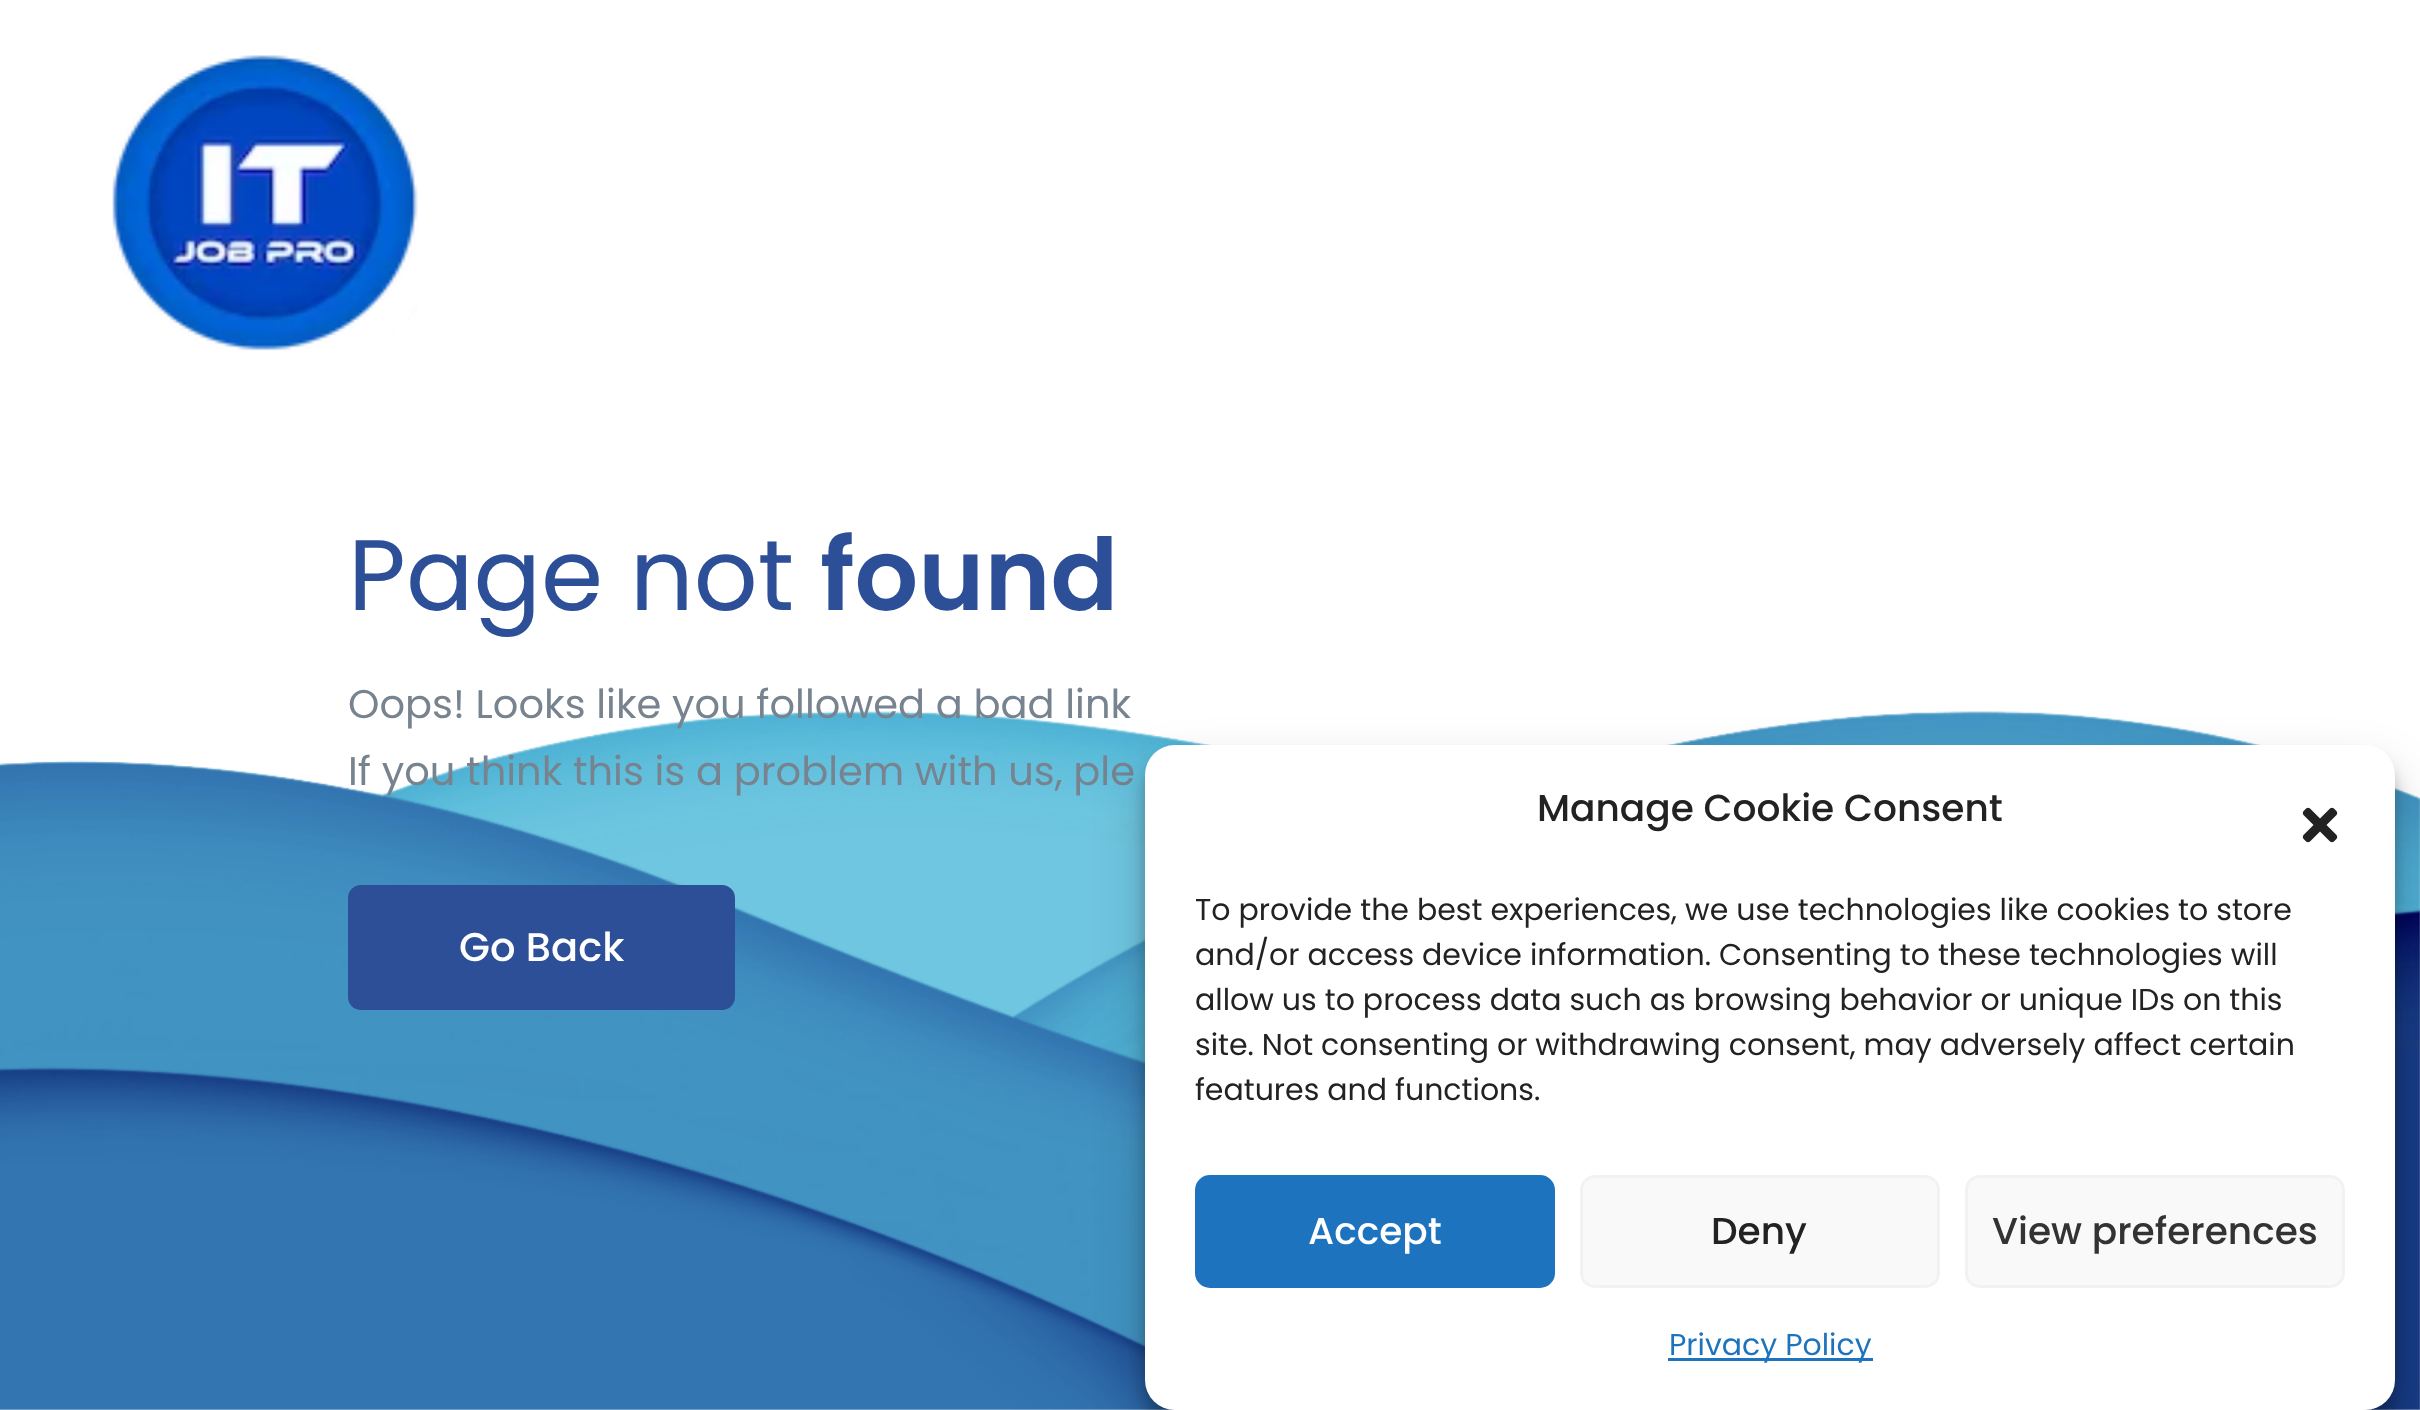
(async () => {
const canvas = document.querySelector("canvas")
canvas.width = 2420
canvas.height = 1410
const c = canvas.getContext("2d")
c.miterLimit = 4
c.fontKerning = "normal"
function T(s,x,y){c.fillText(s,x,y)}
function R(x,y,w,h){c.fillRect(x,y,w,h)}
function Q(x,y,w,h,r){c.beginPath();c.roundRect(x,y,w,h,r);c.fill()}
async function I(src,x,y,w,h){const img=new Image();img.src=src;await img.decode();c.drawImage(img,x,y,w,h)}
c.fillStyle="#fff"
R(0,0,2420,1410)
await I("1.png",0,711,2420,699)
await I("2.png",112,55,306,296)
c.font="100px Poppins"
c.fillStyle="#2d4f98"
T("Page not",348,610)
c.font="600 100px Poppins"
T("found",820,610)
c.font="40px Poppins"
c.fillStyle="#77838f"
T("Oops! Looks like you followed a bad link",348,718)
T("If you think this is a problem with us, ple",348,785)
c.fillStyle="#2d4f98"
c.beginPath()
c.roundRect(349.5,886.5,384,122,11.5)
c.fill()
c.strokeStyle="#2d4f98"
c.lineWidth=3
c.stroke()
c.font="500 40px Poppins"
c.fillStyle="#fff"
T("Go Back",459,961)
c.fillStyle="#0000003b"
c.filter="blur(7.5px)"
c.beginPath()
c.roundRect(1145,760,1250,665,30)
c.fill()
c.filter="none"
c.fillStyle="#00000030"
c.filter="blur(25px)"
c.beginPath()
c.roundRect(1145,770,1250,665,30)
c.fill()
c.filter="none"
c.fillStyle="#fff"
Q(1145,745,1250,665,30)
c.font="500 37.5px Poppins"
c.fillStyle="#222"
T("Manage Cookie Consent",1537,821)
await I("3.png",2302,807,36,36)
c.font="30px Poppins"
T("To provide the best experiences, we use technologies like cookies to store",1195,920)
T("and/or access device information. Consenting to these technologies will",1195,965)
T("allow us to process data such as browsing behavior or unique IDs on this",1195,1010)
T("site. Not consenting or withdrawing consent, may adversely affect certain",1195,1055)
T("features and functions.",1195,1100)
c.fillStyle="#1e73be"
c.beginPath()
c.roundRect(1196.5,1176.5,357,110,13.5)
c.fill()
c.strokeStyle="#1e73be"
c.stroke()
c.font="500 37.5px Poppins"
c.fillStyle="#fff"
T("Accept",1308,1244)
c.fillStyle="#f9f9f9"
c.beginPath()
c.roundRect(1581.5,1176.5,357,110,13.5)
c.fill()
c.strokeStyle="#f2f2f2"
c.stroke()
c.fillStyle="#222"
T("Deny",1711,1244)
c.fillStyle="#f9f9f9"
c.beginPath()
c.roundRect(1966.5,1176.5,377,110,13.5)
c.fill()
c.stroke()
c.fillStyle="#333"
T("View preferences",1992,1244)
c.fillStyle="#1e73be"
R(1668,1358,205,3)
c.font="30px Poppins"
T("Privacy Policy",1669,1355)
})()
